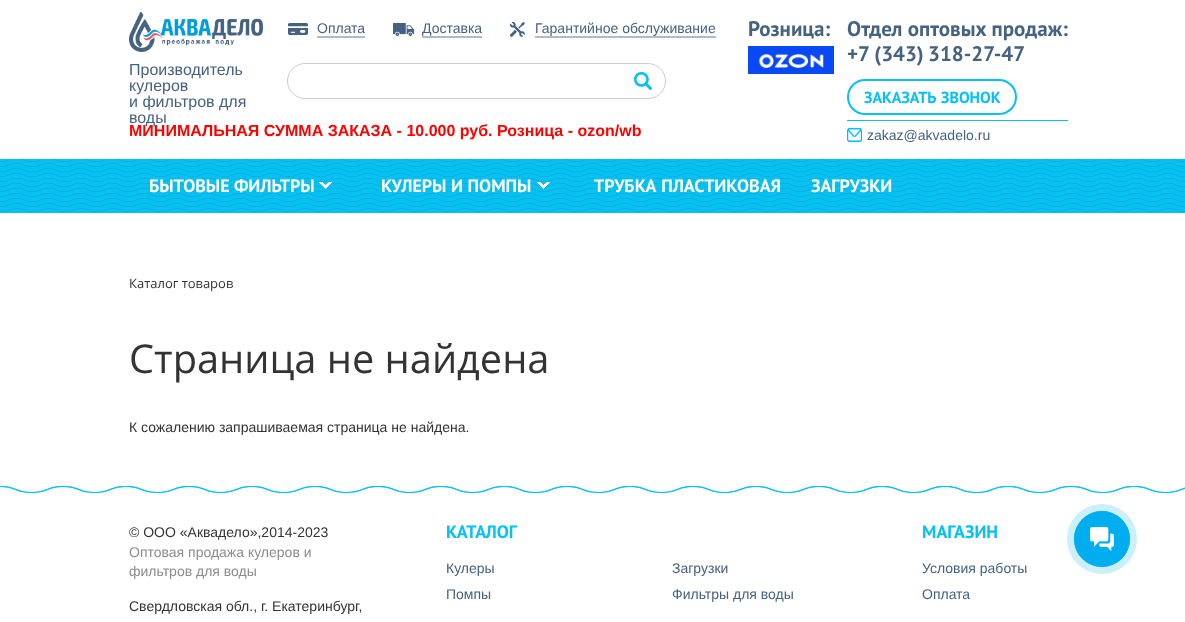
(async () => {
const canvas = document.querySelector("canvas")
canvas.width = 1185
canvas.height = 622
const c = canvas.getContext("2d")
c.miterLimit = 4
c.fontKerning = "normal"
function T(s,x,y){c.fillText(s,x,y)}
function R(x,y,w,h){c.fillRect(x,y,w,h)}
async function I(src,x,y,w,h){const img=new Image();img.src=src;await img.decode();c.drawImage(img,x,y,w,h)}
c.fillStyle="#fff"
R(0,0,1185,622)
c.fillStyle="#b1bbc6"
R(317,36,48,2)
await I("1.png",288,23,20,12)
c.font="14px Liberation Sans"
c.fillStyle="#456280"
T("Оплата",317,33)
c.fillStyle="#b1bbc6"
R(422,36,60,2)
await I("2.png",393,23,21,13)
c.fillStyle="#456280"
T("Доставка",422,33)
c.fillStyle="#b1bbc6"
R(535,36,181,2)
await I("3.png",510,22,15,15)
c.fillStyle="#456280"
T("Гарантийное обслуживание",535,33)
c.beginPath()
c.roundRect(287.5,63.5,378,35,17.5)
c.strokeStyle="#ccc"
c.stroke()
await I("4.png",634,72,18,18)
c.font="bold 21px PT Sans"
T("Розница:",748,36)
await I("5.png",748,46,86,28)
T("Отдел оптовых продаж:",847,36)
c.wordSpacing="-1px"
T("+7 (343) 318-27-47",847,61)
c.beginPath()
c.roundRect(848,80,168,34,17)
c.strokeStyle="#07c1f2"
c.lineWidth=2
c.stroke()
c.wordSpacing="1px"
c.font="bold 16px PT Sans"
c.fillStyle="#07c1f2"
T("ЗАКАЗАТЬ ЗВОНОК",864,103)
R(847,120,221,1)
await I("6.png",847,128,15,14)
c.wordSpacing="0px"
c.font="14px Liberation Sans"
c.fillStyle="#456280"
T("zakaz@akvadelo.ru",867,140)
await I("7.png",129,12,134,40)
c.font="16px Liberation Sans"
T("Производитель",129,75)
T("кулеров",129,91)
T("и фильтров для",129,107)
T("воды",129,123)
c.font="bold 16px Liberation Sans"
c.fillStyle="#f00"
T("МИНИМАЛЬНАЯ СУММА ЗАКАЗА - 10.000 руб. Розница - ozon/wb",129,136)
await I("8.png",0,159,1185,54)
c.font="bold 18px PT Sans"
c.fillStyle="#fff"
T("БЫТОВЫЕ ФИЛЬТРЫ",149,192)
await I("9.png",319,182,13,7)
T("КУЛЕРЫ И ПОМПЫ",381,192)
await I("10.png",537,182,13,7)
c.wordSpacing="1px"
T("ТРУБКА ПЛАСТИКОВАЯ",594,192)
c.wordSpacing="0px"
T("ЗАГРУЗКИ",811,192)
c.font="13px Open Sans"
c.fillStyle="#333"
T("Каталог товаров",129,288)
c.font="39.75px Open Sans"
T("Страница не найдена",129,373)
c.font="14px Liberation Sans"
T("К сожалению запрашиваемая страница не найдена.",129,432)
await I("11.png",0,486,1185,7)
T("© ООО «Аквадело»,2014-2023",129,537)
c.fillStyle="#8c8c8c"
T("Оптовая продажа кулеров и",129,557)
T("фильтров для воды",129,576)
c.fillStyle="#333"
T("Свердловская обл., г. Екатеринбург,",129,611)
c.font="bold 18px PT Sans"
c.fillStyle="#07c1f2"
T("КАТАЛОГ",446,538)
c.font="14px Liberation Sans"
c.fillStyle="#456280"
T("Кулеры",446,573)
T("Загрузки",672,573)
T("Помпы",446,599)
T("Фильтры для воды",672,599)
c.font="bold 18px PT Sans"
c.fillStyle="#07c1f2"
T("МАГАЗИН",922,538)
c.font="14px Liberation Sans"
c.fillStyle="#456280"
T("Условия работы",922,573)
T("Оплата",922,599)
c.fillStyle="#cceffc"
c.beginPath()
c.arc(1102,539,35,0,7)
c.fill()
c.beginPath()
c.arc(1102,539,27.6,0,7)
c.strokeStyle="#00aeef"
c.lineWidth=0.8
c.stroke()
c.fillStyle="#00aeef"
c.beginPath()
c.arc(1102,539,28,0,7)
c.fill()
await I("12.png",1090,527,24,24)
})()
